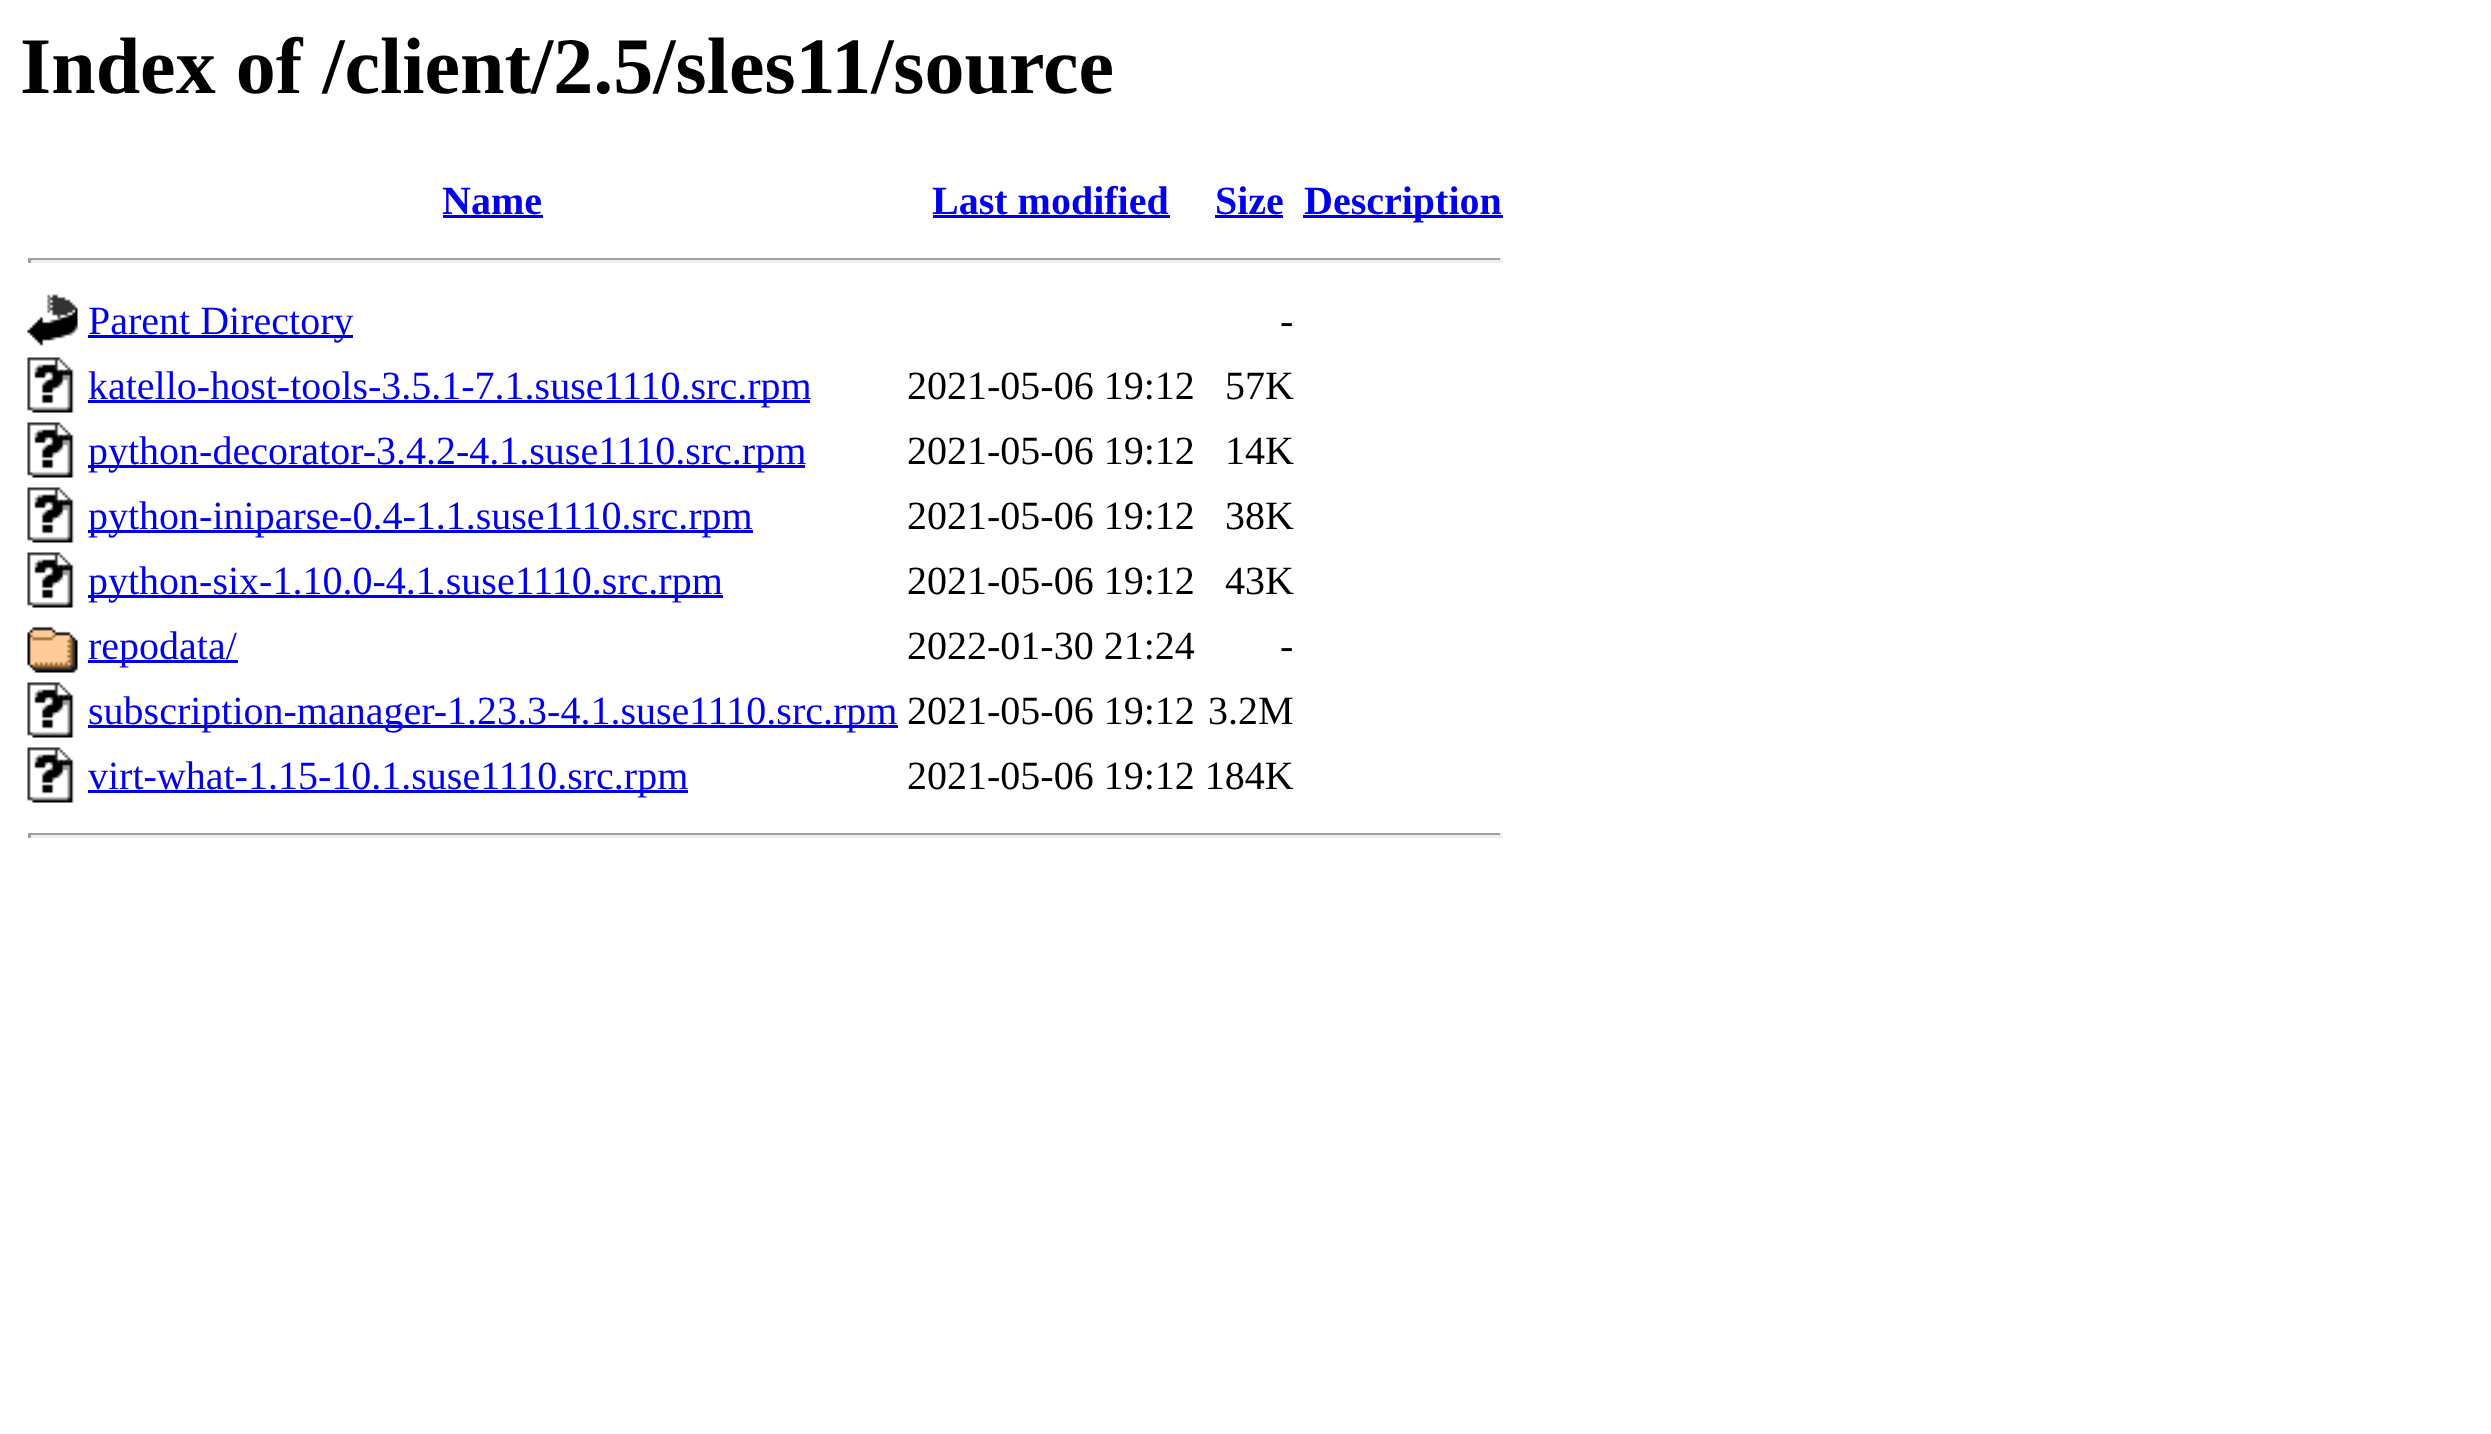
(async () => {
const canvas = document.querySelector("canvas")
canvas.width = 2491
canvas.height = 1434
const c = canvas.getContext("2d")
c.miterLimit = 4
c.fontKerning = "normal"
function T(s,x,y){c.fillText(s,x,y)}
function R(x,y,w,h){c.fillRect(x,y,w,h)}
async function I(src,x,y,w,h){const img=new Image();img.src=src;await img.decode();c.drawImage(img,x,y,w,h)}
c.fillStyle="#fff"
R(0,0,2491,1434)
c.font="bold 80px Liberation Serif"
c.fillStyle="#000"
T("Index of /client/2.5/sles11/source",20,93)
c.font="bold 40px Liberation Serif"
c.fillStyle="#00e"
T("Name",442,214)
R(443,215,100,3)
T("Last modified",932,214)
R(933,215,237,3)
T("Size",1215,214)
R(1215,215,68,3)
R(1303,215,200,3)
T("Description",1304,214)
c.fillStyle="#9f9f9f"
R(28,258,1475,2)
c.fillStyle="#eee"
R(1500,258,3,5)
R(28,260,1475,3)
c.fillStyle="#9f9f9f"
R(28,258,3,5)
await I("1.png",27,294,51,52)
c.fillStyle="#00e"
R(88,335,265,3)
c.font="40px Liberation Serif"
T("Parent Directory",88,334)
c.fillStyle="#000"
T("-",1280,334)
await I("2.png",27,357,47,56)
c.fillStyle="#00e"
R(88,400,722,3)
T("katello-host-tools-3.5.1-7.1.suse1110.src.rpm",88,399)
c.fillStyle="#000"
T("2021-05-06 19:12",907,399)
T("57K",1225,399)
await I("2.png",27,422,47,56)
c.fillStyle="#00e"
R(88,465,717,3)
T("python-decorator-3.4.2-4.1.suse1110.src.rpm",88,464)
c.fillStyle="#000"
T("2021-05-06 19:12",907,464)
T("14K",1225,464)
await I("2.png",27,487,47,56)
c.fillStyle="#00e"
R(88,530,665,3)
T("python-iniparse-0.4-1.1.suse1110.src.rpm",88,529)
c.fillStyle="#000"
T("2021-05-06 19:12",907,529)
T("38K",1225,529)
await I("3.png",27,552,47,56)
c.fillStyle="#00e"
R(88,595,635,3)
T("python-six-1.10.0-4.1.suse1110.src.rpm",88,594)
c.fillStyle="#000"
T("2021-05-06 19:12",907,594)
T("43K",1225,594)
await I("4.png",27,626,51,47)
c.fillStyle="#00e"
R(88,660,150,3)
T("repodata/",88,659)
c.fillStyle="#000"
T("2022-01-30 21:24",907,659)
T("-",1280,659)
await I("2.png",27,682,47,56)
c.fillStyle="#00e"
R(88,725,810,3)
T("subscription-manager-1.23.3-4.1.suse1110.src.rpm",88,724)
c.fillStyle="#000"
T("2021-05-06 19:12",907,724)
T("3.2M",1208,724)
await I("2.png",27,747,47,56)
c.fillStyle="#00e"
R(88,790,600,3)
T("virt-what-1.15-10.1.suse1110.src.rpm",88,789)
c.fillStyle="#000"
T("2021-05-06 19:12 184K",907,789)
c.fillStyle="#9f9f9f"
R(28,833,1475,2)
c.fillStyle="#eee"
R(1500,833,3,5)
R(28,835,1475,3)
c.fillStyle="#9f9f9f"
R(28,833,3,5)
})()
